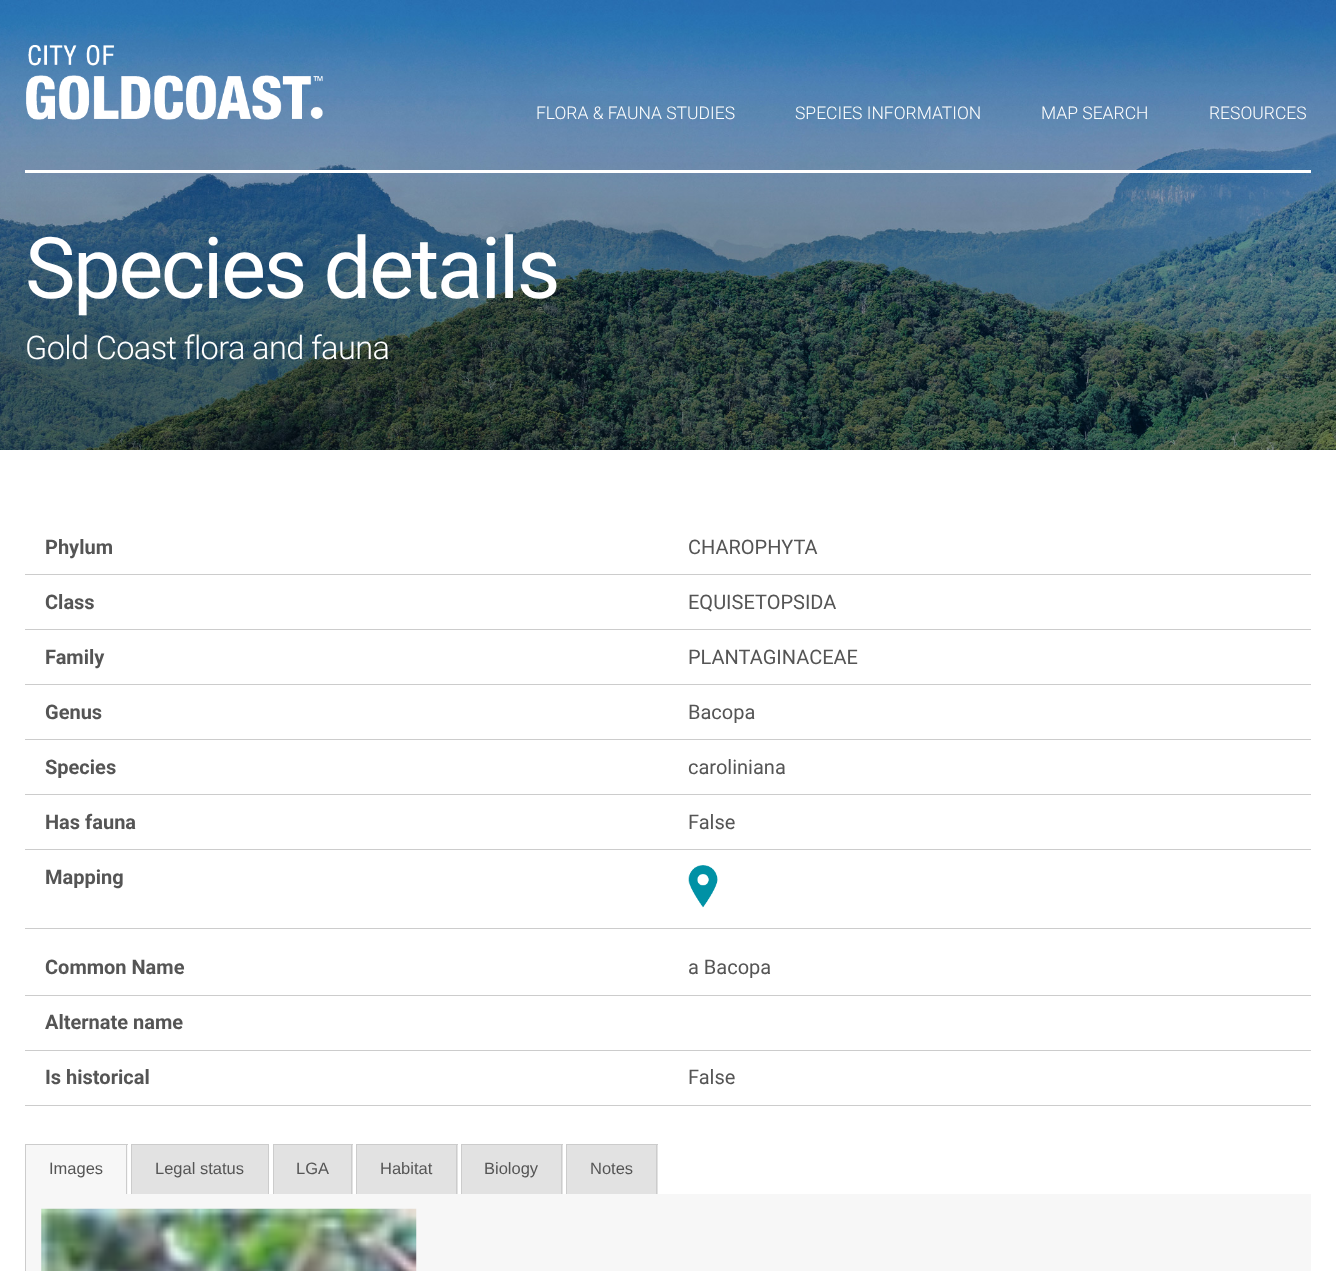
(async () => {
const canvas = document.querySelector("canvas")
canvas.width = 1336
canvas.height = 1271
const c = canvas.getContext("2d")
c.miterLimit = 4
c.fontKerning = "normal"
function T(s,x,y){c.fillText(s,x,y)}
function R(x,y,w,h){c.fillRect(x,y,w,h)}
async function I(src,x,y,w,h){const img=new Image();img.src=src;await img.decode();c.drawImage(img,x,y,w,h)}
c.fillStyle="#fff"
R(0,0,1336,1271)
await I("1.png",0,0,1336,450)
await I("2.png",26,45,297,75)
c.font="300 17.5px Roboto"
T("FLORA & FAUNA STUDIES",536,119)
T("SPECIES INFORMATION",795,119)
T("MAP SEARCH",1041,119)
T("RESOURCES",1209,119)
R(25,170,1286,3)
c.letterSpacing="-2.5px"
c.font="85px Roboto"
T("Species details",25,298)
c.letterSpacing="-0.6px"
c.font="300 32.5px Roboto"
T("Gold Coast flora and fauna",25,359)
c.fillStyle="#ccc"
R(25,574,1286,1)
c.letterSpacing="0px"
c.font="bold 20px Roboto"
c.fillStyle="#555"
T("Phylum",45,554)
c.font="20px Roboto"
T("CHAROPHYTA",688,554)
c.fillStyle="#ccc"
R(25,629,1286,1)
c.font="bold 20px Roboto"
c.fillStyle="#555"
T("Class",45,609)
c.font="20px Roboto"
T("EQUISETOPSIDA",688,609)
c.fillStyle="#ccc"
R(25,684,1286,1)
c.font="bold 20px Roboto"
c.fillStyle="#555"
T("Family",45,664)
c.font="20px Roboto"
T("PLANTAGINACEAE",688,664)
c.fillStyle="#ccc"
R(25,739,1286,1)
c.font="bold 20px Roboto"
c.fillStyle="#555"
T("Genus",45,719)
c.font="20px Roboto"
T("Bacopa",688,719)
c.fillStyle="#ccc"
R(25,794,1286,1)
c.font="bold 20px Roboto"
c.fillStyle="#555"
T("Species",45,774)
c.font="20px Roboto"
T("caroliniana",688,774)
c.fillStyle="#ccc"
R(25,849,1286,1)
c.font="bold 20px Roboto"
c.fillStyle="#555"
T("Has fauna",45,829)
c.font="20px Roboto"
T("False",688,829)
c.fillStyle="#ccc"
R(25,928,1286,1)
c.font="bold 20px Roboto"
c.fillStyle="#555"
T("Mapping",45,884)
await I("3.png",688,865,30,43)
c.fillStyle="#ccc"
R(25,995,1286,1)
c.fillStyle="#555"
T("Common Name",45,974)
c.font="20px Roboto"
T("a Bacopa",688,974)
c.fillStyle="#ccc"
R(25,1050,1286,1)
c.font="bold 20px Roboto"
c.fillStyle="#555"
T("Alternate name",45,1029)
c.fillStyle="#ccc"
R(25,1105,1286,1)
c.fillStyle="#555"
T("Is historical",45,1084)
c.font="20px Roboto"
T("False",688,1084)
c.fillStyle="#f7f7f7"
R(26,1145,102,49)
c.fillStyle="#ccc"
R(25,1144,103,1)
R(126,1144,1,50)
R(25,1144,1,127)
c.font="16.5px Liberation Sans"
c.fillStyle="#555"
T("Images",49,1174)
c.fillStyle="#e2e2e2"
R(132,1145,136,49)
c.fillStyle="#ccc"
R(131,1144,138,1)
R(268,1144,1,50)
R(131,1144,1,50)
c.fillStyle="#555"
T("Legal status",155,1174)
c.fillStyle="#e2e2e2"
R(274,1145,79,49)
c.fillStyle="#ccc"
R(273,1144,80,1)
R(351,1144,1,50)
R(273,1144,1,50)
c.fillStyle="#555"
T("LGA",296,1174)
c.fillStyle="#e2e2e2"
R(357,1145,101,49)
c.fillStyle="#ccc"
R(356,1144,102,1)
R(456,1144,1,50)
R(356,1144,1,50)
c.fillStyle="#555"
T("Habitat",380,1174)
c.fillStyle="#e2e2e2"
R(462,1145,101,49)
c.fillStyle="#ccc"
R(461,1144,102,1)
R(561,1144,1,50)
R(461,1144,1,50)
c.fillStyle="#555"
T("Biology",484,1174)
c.fillStyle="#e2e2e2"
R(567,1145,91,49)
c.fillStyle="#ccc"
R(566,1144,92,1)
R(656,1144,1,50)
R(566,1144,1,50)
c.fillStyle="#555"
T("Notes",590,1174)
c.fillStyle="#f7f7f7"
R(26,1194,1285,77)
await I("4.png",41,1208,376,63)
})()
